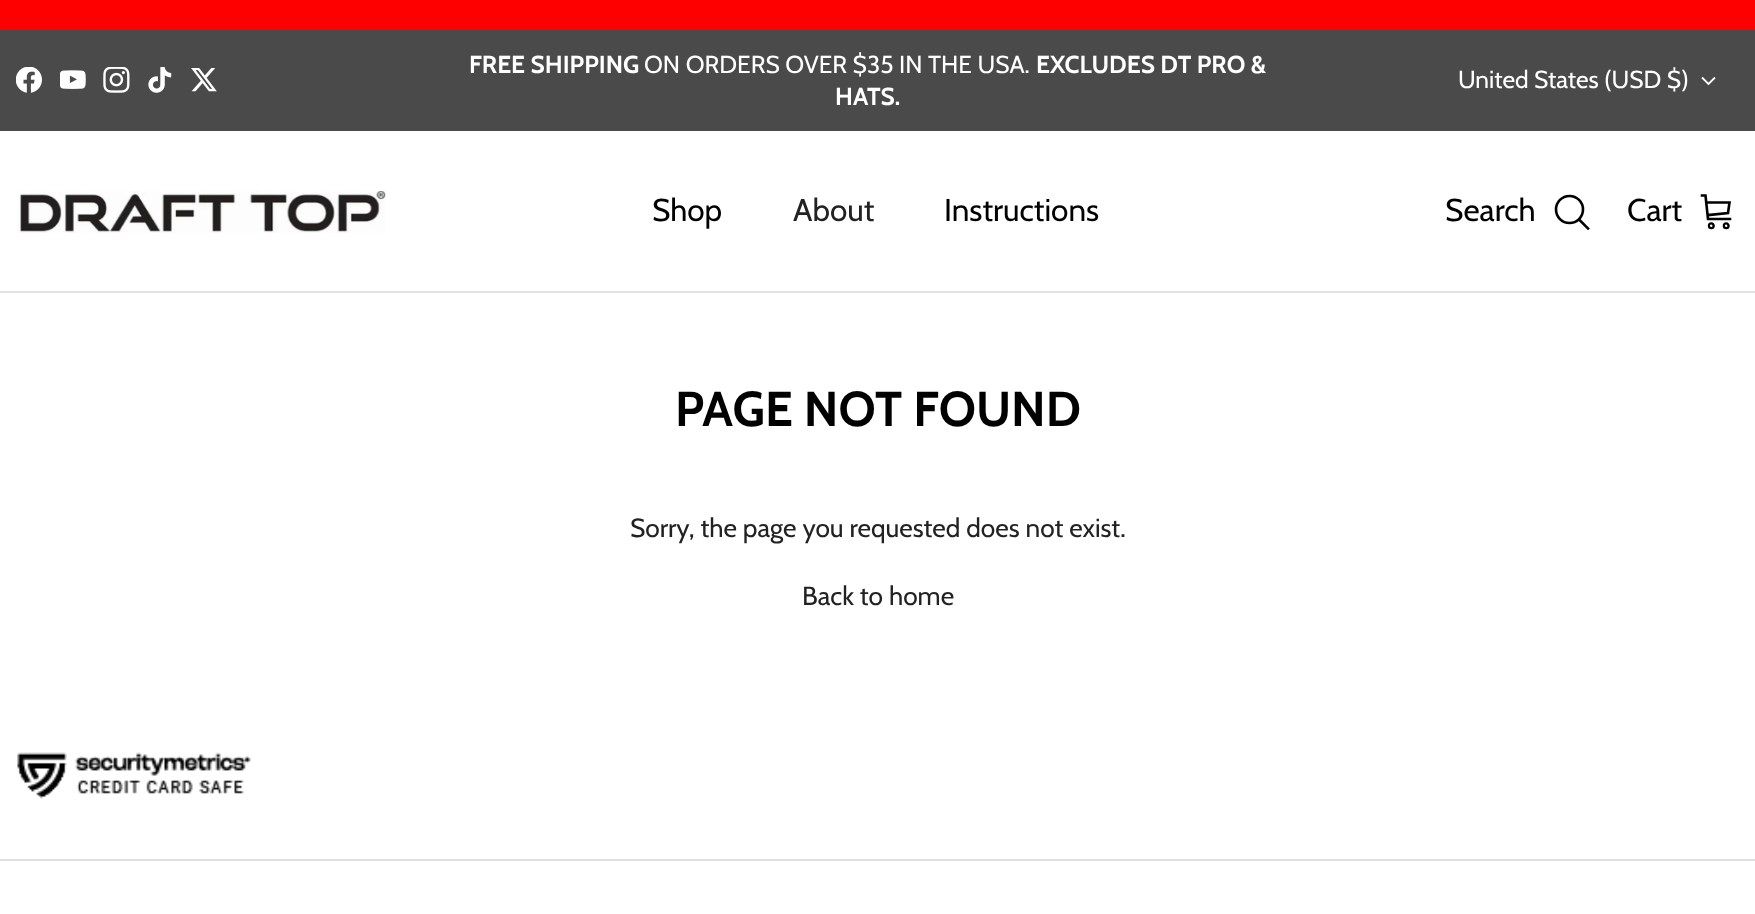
(async () => {
const canvas = document.querySelector("canvas")
canvas.width = 1755
canvas.height = 914
const c = canvas.getContext("2d")
c.miterLimit = 4
c.fontKerning = "normal"
function T(s,x,y){c.fillText(s,x,y)}
function R(x,y,w,h){c.fillRect(x,y,w,h)}
async function I(src,x,y,w,h){const img=new Image();img.src=src;await img.decode();c.drawImage(img,x,y,w,h)}
let path
c.fillStyle="#fff"
R(0,0,1755,914)
c.fillStyle="#f00"
R(0,0,1755,30)
c.fillStyle="#4a4a4a"
R(0,30,1755,101)
await I("1.png",16,67,26,26)
await I("2.png",60,70,26,19)
await I("3.png",103,67,27,26)
await I("4.png",148,67,24,26)
await I("5.png",191,68,26,24)
c.font="bold 24.5px Cabin"
c.fillStyle="#fff"
T("FREE SHIPPING",469,73)
c.font="24.5px Cabin"
T("ON ORDERS OVER $35 IN THE USA.",644,73)
c.font="bold 24.5px Cabin"
T("EXCLUDES DT PRO &",1036,73)
T("HATS.",835,105)
c.font="24.5px Cabin"
T("United States (USD $)",1458,88)
path = new Path2D("M1715 77.5l-6.5 6.5l-6.5-6.5")
c.strokeStyle="#fff"
c.lineWidth=1.8
c.stroke(path)
c.fillStyle="#e2e2e2"
R(0,291,1755,2)
await I("6.png",17,191,369,42)
c.font="31.5px Cabin"
c.fillStyle="#000"
T("Shop",652,221)
c.fillStyle="#222"
T("About",793,221)
c.fillStyle="#000"
T("Instructions",944,221)
T("Search",1445,221)
c.beginPath()
c.arc(1569.5,209.5,13.5,0,7)
c.strokeStyle="#000"
c.lineWidth=2.6
c.stroke()
path = new Path2D("M1580 220.5l8 8")
c.lineCap="square"
c.stroke(path)
T("Cart",1627,221)
path = new Path2D("M1702 195.5h3.5l2.5 23.5h22m-23.5-16.5h23l-1.5 10.5l-19 2")
c.stroke(path)
c.beginPath()
c.arc(1711.3,225.8,2.4,0,7)
c.lineWidth=2.2
c.stroke()
c.beginPath()
c.arc(1726.2,225.8,2.4,0,7)
c.stroke()
c.font="bold 49px Cabin"
T("PAGE NOT FOUND",675,426)
c.font="26.25px Cabin"
c.fillStyle="#222"
T("Sorry, the page you requested does not exist.",630,537)
T("Back to home",802,605)
await I("7.png",17,752,234,47)
c.fillStyle="#e0e0e0"
R(0,859,1755,2)
})()
